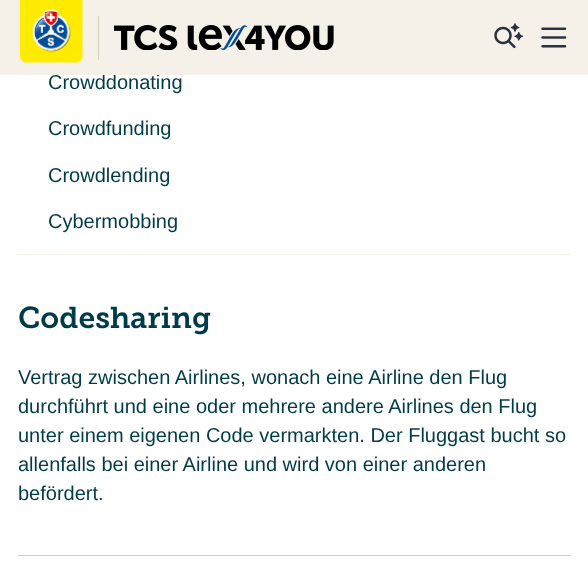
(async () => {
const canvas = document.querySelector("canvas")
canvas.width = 588
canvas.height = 588
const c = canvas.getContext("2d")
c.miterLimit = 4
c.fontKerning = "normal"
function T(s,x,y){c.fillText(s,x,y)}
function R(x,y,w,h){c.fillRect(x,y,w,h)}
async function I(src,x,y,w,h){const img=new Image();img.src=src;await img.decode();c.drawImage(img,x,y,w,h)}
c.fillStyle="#fff"
R(0,0,588,588)
c.font="20px Liberation Sans"
c.fillStyle="#003b49"
T("Crowddonating",48,89)
c.fillStyle="#f5f1e9"
R(0,0,588,75)
await I("1.png",20,0,63,63)
c.fillStyle="#d6cebc"
R(98,16,1,44)
await I("2.png",114,25,220,25)
await I("3.png",494,23,30,26)
await I("4.png",541,27,26,21)
c.fillStyle="#f5f1e9"
R(18,254,553,1)
c.fillStyle="#003b49"
T("Crowdfunding",48,135)
T("Crowdlending",48,182)
T("Cybermobbing",48,228)
c.font="600 30px Museo Slab"
T("Codesharing",18,328)
c.font="20px Liberation Sans"
T("Vertrag zwischen Airlines, wonach eine Airline den Flug",18,384)
T("durchführt und eine oder mehrere andere Airlines den Flug",18,413)
T("unter einem eigenen Code vermarkten. Der Fluggast bucht so",18,442)
T("allenfalls bei einer Airline und wird von einer anderen",18,471)
T("befördert.",18,500)
c.fillStyle="#d6cebc"
R(18,555,553,1)
})()
